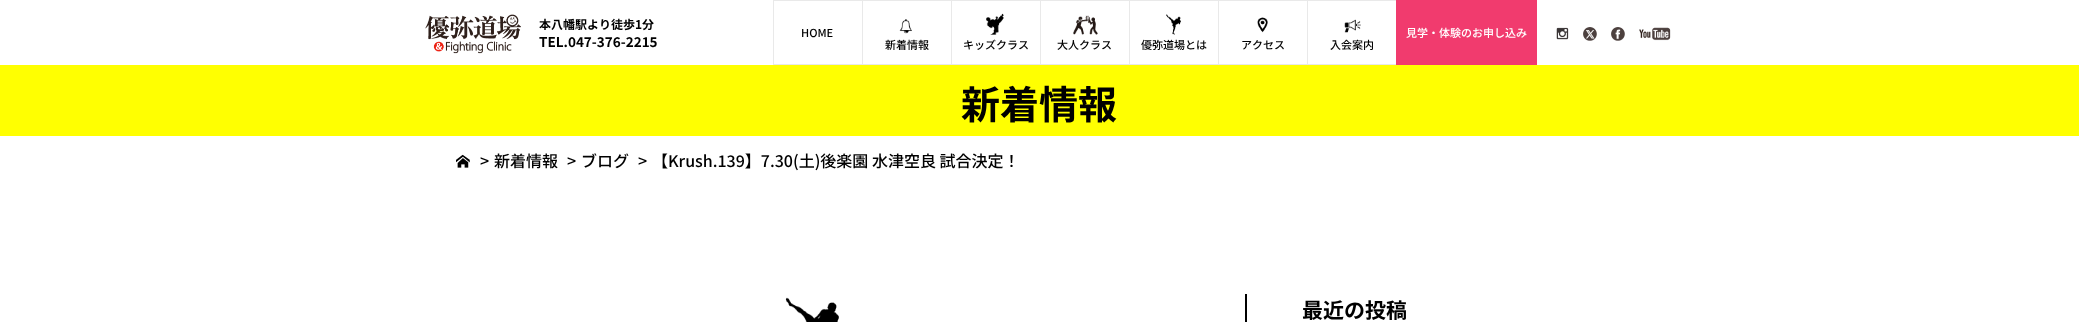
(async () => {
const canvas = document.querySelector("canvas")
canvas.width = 2079
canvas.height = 322
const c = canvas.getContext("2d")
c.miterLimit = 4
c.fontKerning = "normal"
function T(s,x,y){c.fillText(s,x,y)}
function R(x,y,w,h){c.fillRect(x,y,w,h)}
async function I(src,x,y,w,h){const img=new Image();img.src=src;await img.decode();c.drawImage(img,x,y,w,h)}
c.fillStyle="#fff"
R(0,0,2079,322)
await I("1.png",425,14,96,40)
c.font="bold 12px Noto Sans JP"
c.fillStyle="#000"
T("本八幡駅より徒歩1分",539,29)
c.font="bold 13.5px Noto Sans JP"
T("TEL.047-376-2215",539,47)
c.fillStyle="#e9e9e9"
R(773,0,623,1)
R(773,64,623,1)
R(773,0,1,65)
c.font="500 11px Noto Sans JP"
c.fillStyle="#000"
T("HOME",801,37)
c.fillStyle="#f13b6e"
R(1396,0,141,65)
c.fillStyle="#fff"
T("見学・体験のお申し込み",1406,37)
c.fillStyle="#e9e9e9"
R(862,0,1,65)
await I("2.png",899,19,13,15)
c.fillStyle="#000"
T("新着情報",885,49)
c.fillStyle="#e9e9e9"
R(951,0,1,65)
await I("3.png",986,13,18,22)
c.fillStyle="#000"
T("キッズクラス",963,49)
c.fillStyle="#e9e9e9"
R(1040,0,1,65)
await I("4.png",1073,15,25,20)
c.fillStyle="#000"
T("大人クラス",1057,49)
c.fillStyle="#e9e9e9"
R(1129,0,1,65)
await I("5.png",1166,14,15,21)
c.fillStyle="#000"
T("優弥道場とは",1141,49)
c.fillStyle="#e9e9e9"
R(1218,0,1,65)
await I("6.png",1257,17,11,16)
c.fillStyle="#000"
T("アクセス",1241,49)
c.fillStyle="#e9e9e9"
R(1307,0,1,65)
await I("7.png",1344,19,17,14)
c.fillStyle="#000"
T("入会案内",1330,49)
await I("8.png",1556,27,13,13)
await I("9.png",1583,27,14,14)
await I("10.png",1611,27,14,14)
await I("11.png",1639,27,32,14)
c.fillStyle="#ffff01"
R(0,65,2079,71)
c.font="bold 39px Noto Sans JP"
c.fillStyle="#000"
T("新着情報",961,119)
await I("12.png",456,154,14,14)
c.font="500 16px Noto Sans JP"
T(">",480,167)
T("新着情報",494,167)
T(">",567,167)
T("ブログ",581,167)
T(">",638,167)
T("【Krush.139】7.30(土)後楽園 水津空良 試合決定！",652,167)
await I("13.png",785,297,54,25)
R(1245,294,2,28)
c.font="bold 21px Noto Sans JP"
T("最近の投稿",1302,318)
})()
